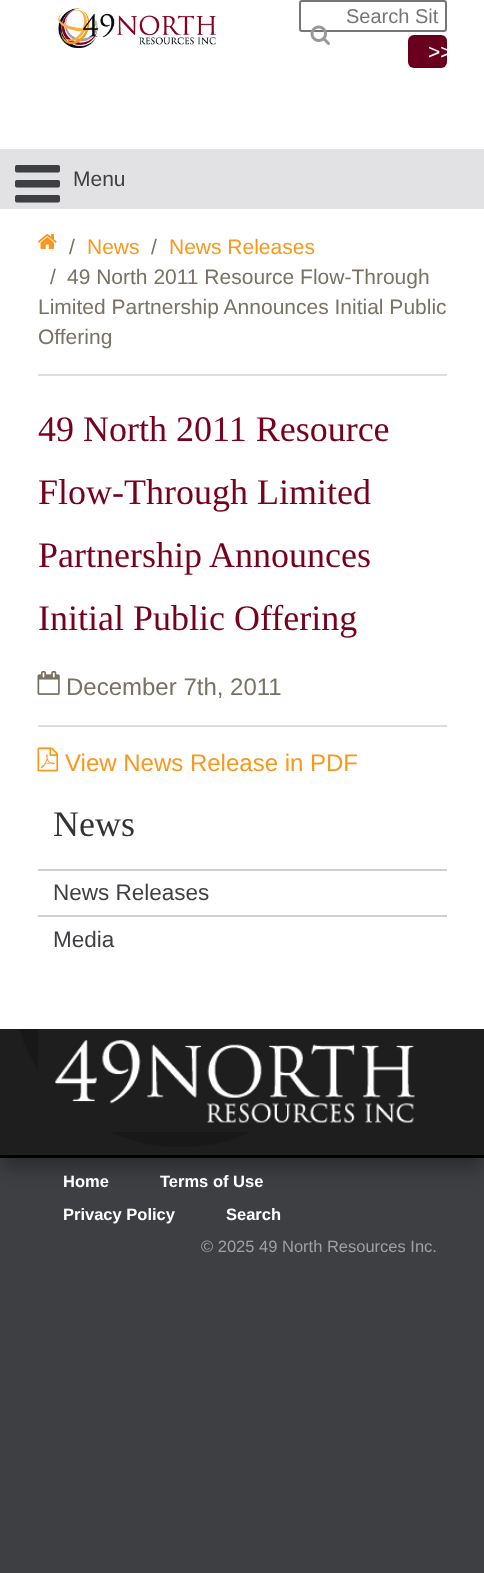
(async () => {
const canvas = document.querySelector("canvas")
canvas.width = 484
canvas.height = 1573
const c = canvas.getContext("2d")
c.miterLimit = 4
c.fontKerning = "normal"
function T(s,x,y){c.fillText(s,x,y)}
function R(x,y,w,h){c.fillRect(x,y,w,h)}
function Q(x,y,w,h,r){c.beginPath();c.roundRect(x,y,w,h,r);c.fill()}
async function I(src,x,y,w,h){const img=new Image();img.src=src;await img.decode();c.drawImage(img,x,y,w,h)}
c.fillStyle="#3e3f43"
R(0,0,484,1573)
c.fillStyle="#fff"
R(0,0,484,149)
await I("1.png",58,8,159,40)
c.beginPath()
c.roundRect(300,1,146,30,2)
c.strokeStyle="#767676"
c.lineWidth=2
c.stroke()
c.font="20px Liberation Sans"
c.fillStyle="#757575"
T("Search Sit",346,23)
await I("2.png",310,25,20,20)
c.fillStyle="#69001d"
Q(408,35,39,33,6)
c.strokeStyle="#0000000f"
c.strokeRect(409,36,37,31)
c.font="21px Liberation Sans"
c.fillStyle="#fff"
T(">>",428,59)
c.fillStyle="#e2e2e4"
R(0,149,484,60)
await I("3.png",15,165,45,38)
c.fillStyle="#3e3f43"
T("Menu",73,186)
c.fillStyle="#fff"
R(0,209,484,820)
await I("4.png",37,234,20,15)
c.fillStyle="#787266"
T("/",69,254)
c.fillStyle="#f8981c"
T("News",87,254)
c.fillStyle="#787266"
T("/",151,254)
c.fillStyle="#f8981c"
T("News Releases",169,254)
c.fillStyle="#787266"
T("/",50,284)
T("49 North 2011 Resource Flow-Through",67,284)
T("Limited Partnership Announces Initial Public",38,314)
T("Offering",38,344)
c.fillStyle="#ddd"
R(38,374,409,2)
c.font="36px Liberation Serif"
c.fillStyle="#76001e"
T("49 North 2011 Resource",38,441)
T("Flow-Through Limited",38,504)
T("Partnership Announces",38,567)
T("Initial Public Offering",38,630)
await I("5.png",37,670,23,25)
c.font="24px Liberation Sans"
c.fillStyle="#787266"
T("December 7th, 2011",66,695)
c.fillStyle="#ddd"
R(38,725,409,2)
await I("6.png",37,747,22,25)
c.fillStyle="#f8981c"
T("View News Release in PDF",65,771)
c.font="36px Liberation Serif"
c.fillStyle="#333"
T("News",53,836)
c.fillStyle="#cfd0d2"
R(38,869,409,2)
c.font="22.5px Liberation Sans"
c.fillStyle="#3e3f43"
T("News Releases",53,900)
c.fillStyle="#cfd0d2"
R(38,915,409,2)
c.fillStyle="#3e3f43"
T("Media",53,947)
c.fillStyle="#00000042"
c.filter="blur(7.5px)"
c.beginPath()
c.rect(3,1047,479,123)
c.fill()
c.filter="none"
c.fillStyle="#1e1e1e"
R(0,1029,484,126)
c.fillStyle="#000"
R(0,1155,484,3)
await I("7.png",20,1029,232,118)
await I("8.png",38,1029,377,103)
c.font="bold 16.5px Liberation Sans"
c.fillStyle="#fff"
T("Home",63,1187)
T("Terms of Use",160,1187)
T("Privacy Policy",63,1220)
T("Search",226,1220)
c.font="16.5px Liberation Sans"
c.fillStyle="#a0a0a0"
T("© 2025 49 North Resources Inc.",201,1252)
})()
